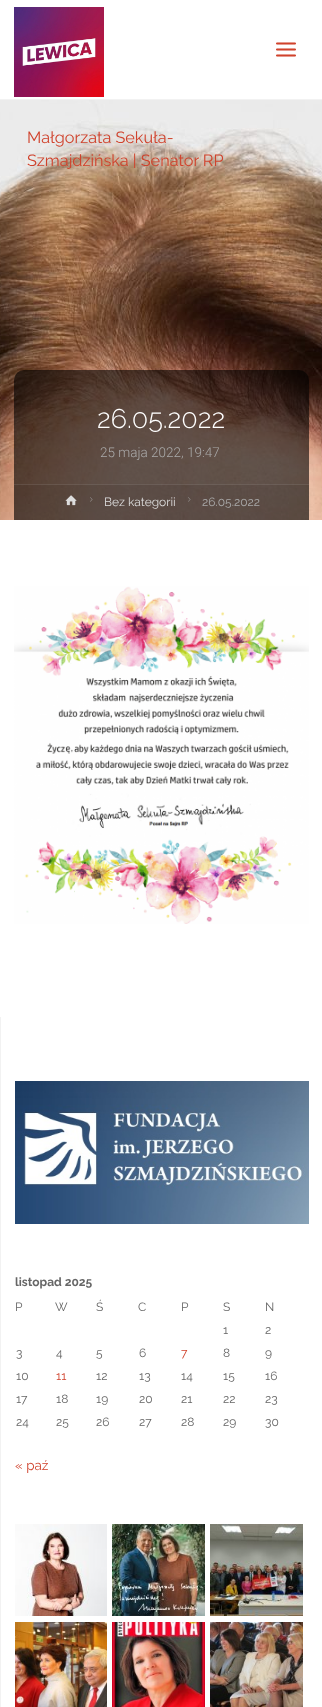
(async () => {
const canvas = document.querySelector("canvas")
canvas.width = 322
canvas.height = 1707
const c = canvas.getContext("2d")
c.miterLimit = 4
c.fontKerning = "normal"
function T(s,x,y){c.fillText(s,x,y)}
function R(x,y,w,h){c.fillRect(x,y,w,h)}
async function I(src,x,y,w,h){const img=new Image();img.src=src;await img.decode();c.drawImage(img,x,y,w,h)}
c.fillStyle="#fff"
R(0,0,322,1707)
c.fillStyle="#f2f2f2"
R(0,99,322,1)
await I("1.png",276,42,20,15)
await I("2.png",14,7,90,90)
await I("3.png",0,100,322,420)
c.font="16.25px Raleway"
c.fillStyle="#d0422c"
T("Małgorzata Sekuła-",27,143)
T("Szmajdzińska | Senator RP",27,166)
c.fillStyle="#00000099"
c.beginPath()
c.roundRect(14,370,295,150,[10,10,0,0])
c.fill()
c.font="300 27px Raleway"
c.fillStyle="#fff"
T("26.05.2022",97,428)
c.font="300 13.5px Roboto"
c.fillStyle="#ababab"
T("25 maja 2022, 19:47",100,457)
c.fillStyle="#0000000d"
R(14,484,295,36)
c.fillStyle="#ffffff1a"
R(14,484,295,1)
await I("4.png",65,495,12,11)
await I("5.png",90,497,3,5)
c.font="12px Raleway"
c.fillStyle="#ddd"
T("Bez kategorii",104,506)
await I("6.png",188,497,3,5)
c.fillStyle="#ababab"
T("26.05.2022",202,506)
await I("7.png",14,586,295,338)
c.fillStyle="#f2f2f2"
R(0,1017,1,690)
await I("8.png",15,1081,294,143)
c.font="bold 12px Raleway"
c.fillStyle="#666"
T("listopad 2025",15,1286)
c.font="12px Raleway"
T("P",15,1311)
T("W",55,1311)
T("Ś",96,1311)
T("C",138,1311)
T("P",181,1311)
T("S",223,1311)
T("N",265,1311)
T("1",223,1334)
T("2",265,1334)
T("3",16,1357)
T("4",56,1357)
T("5",96,1357)
T("6",139,1357)
c.fillStyle="#d0422c"
T("7",181,1357)
c.fillStyle="#666"
T("8",223,1357)
T("9",265,1357)
T("10",16,1380)
c.fillStyle="#d0422c"
T("11",56,1380)
c.fillStyle="#666"
T("12",96,1380)
T("13",139,1380)
T("14",181,1380)
T("15",223,1380)
T("16",265,1380)
T("17",16,1403)
T("18",56,1403)
T("19",96,1403)
T("20",139,1403)
T("21",181,1403)
T("22",223,1403)
T("23",265,1403)
T("24",16,1426)
T("25",56,1426)
T("26",96,1426)
T("27",139,1426)
T("28",181,1426)
T("29",223,1426)
T("30",265,1426)
c.font="13.5px Raleway"
c.fillStyle="#d0422c"
T("« paź",15,1470)
await I("9.png",15,1524,92,92)
await I("10.png",112,1524,93,92)
await I("11.png",210,1524,93,92)
await I("12.png",15,1622,92,85)
await I("13.png",112,1622,93,85)
await I("14.png",210,1622,93,85)
})()
